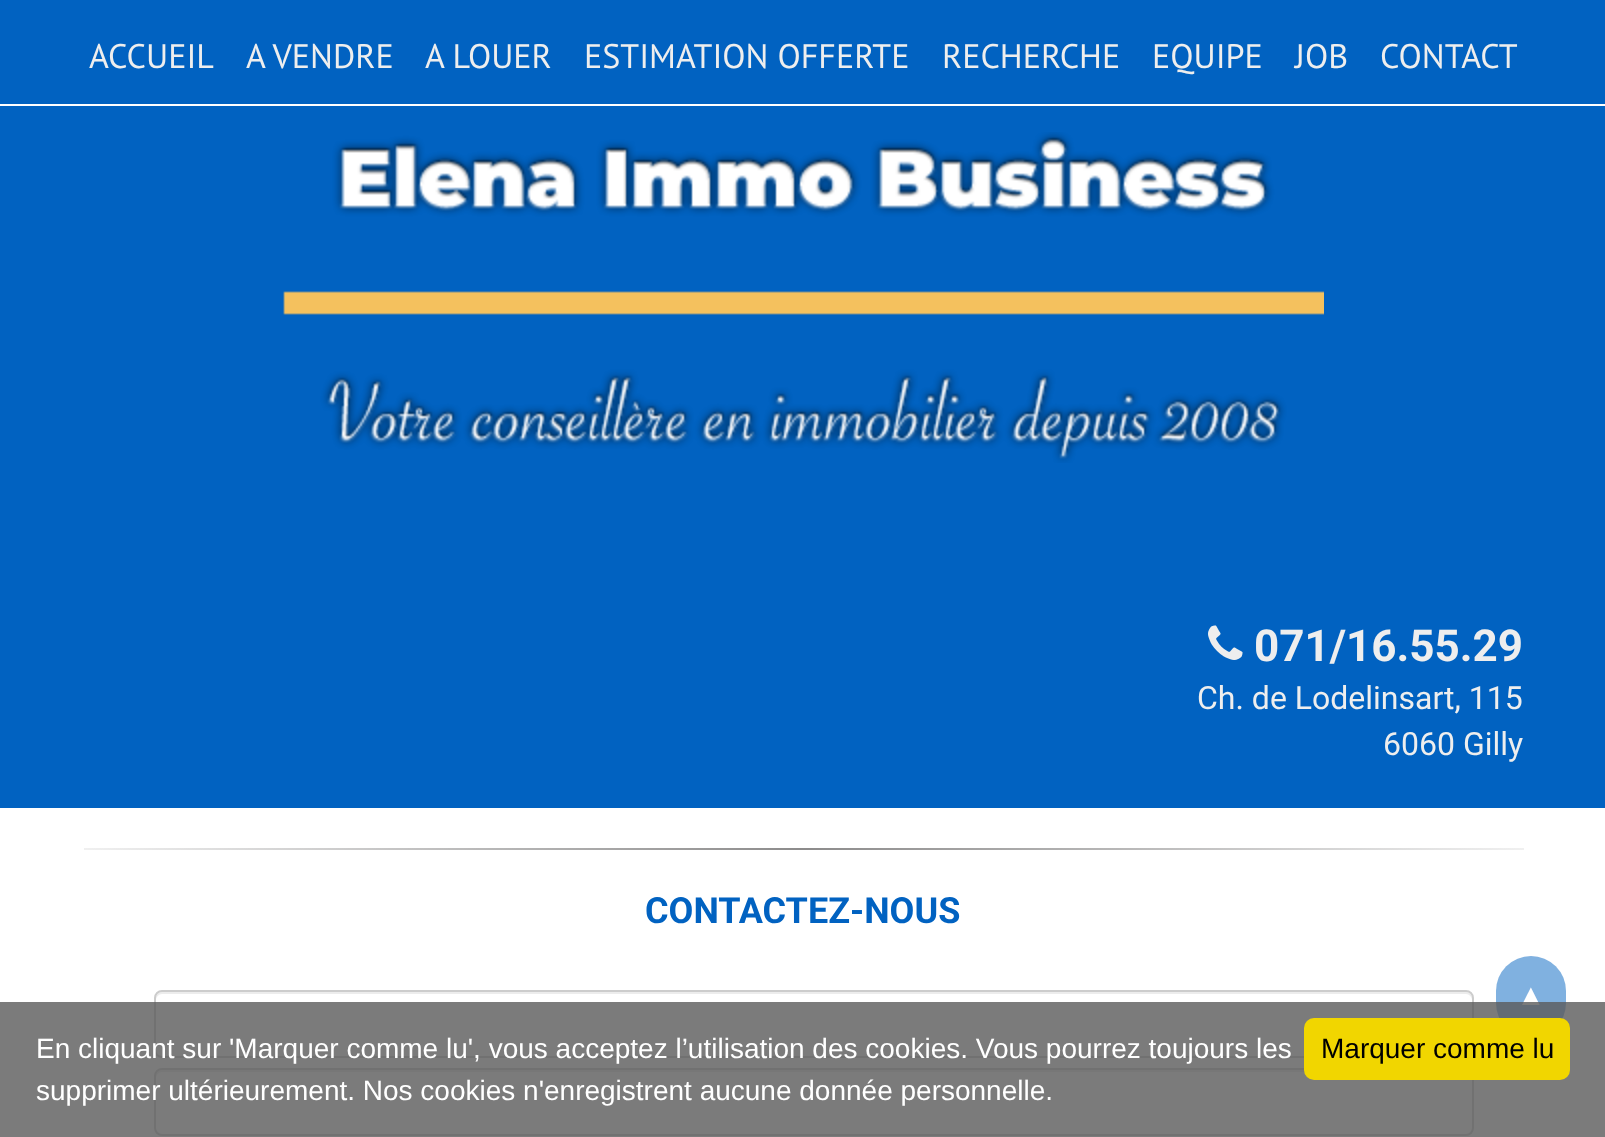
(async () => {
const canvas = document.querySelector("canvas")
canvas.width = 1605
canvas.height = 1137
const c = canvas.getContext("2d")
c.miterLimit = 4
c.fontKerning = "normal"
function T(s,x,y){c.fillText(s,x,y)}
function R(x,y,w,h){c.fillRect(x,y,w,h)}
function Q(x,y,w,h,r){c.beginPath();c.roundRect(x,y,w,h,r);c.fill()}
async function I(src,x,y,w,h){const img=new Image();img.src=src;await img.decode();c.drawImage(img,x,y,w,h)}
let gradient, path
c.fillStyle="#fff"
R(0,0,1605,1137)
c.fillStyle="#0162c1"
R(0,0,1605,104)
c.font="34px PT Sans"
c.fillStyle="#eee"
T("ACCUEIL",89,68)
T("A VENDRE",246,68)
T("A LOUER",425,68)
T("ESTIMATION OFFERTE",584,68)
T("RECHERCHE",942,68)
T("EQUIPE",1152,68)
T("JOB",1295,68)
T("CONTACT",1380,68)
c.fillStyle="#0162c1"
R(0,106,1605,702)
await I("1.png",283,132,1041,331)
await I("2.png",1208,625,35,35)
c.font="bold 44px Roboto"
c.fillStyle="#eee"
T("071/16.55.29",1254,661)
c.font="32px Roboto"
T("Ch. de Lodelinsart, 115",1197,709)
T("6060 Gilly",1383,755)
gradient = c.createLinearGradient(84,849,1524,849)
gradient.addColorStop(0,"#f0f0f0")
gradient.addColorStop(.5,"#8c8b8b")
gradient.addColorStop(1,"#f0f0f0")
c.fillStyle = gradient
R(84,848,1440,2)
c.font="bold 36px Roboto"
c.fillStyle="#0162c1"
T("CONTACTEZ-NOUS",645,923)
c.fillStyle="#ececec"
path = new Path2D("M162 994h1304c3 0 6 3 6 6v-2c0-3-3-6-6-6h-1304c-3 0-6 3-6 6v2c0-3 3-6 6-6z")
c.fill(path)
c.beginPath()
c.roundRect(155,991,1318,66,7)
c.strokeStyle="#ccc"
c.lineWidth=2
c.stroke()
path = new Path2D("M162 1072h1304c3 0 6 3 6 6v-2c0-3-3-6-6-6h-1304c-3 0-6 3-6 6v2c0-3 3-6 6-6z")
c.fill(path)
c.beginPath()
c.roundRect(155,1069,1318,66,7)
c.stroke()
c.fillStyle="#80b1e0"
Q(1496,956,70,82,35)
c.font="30px Liberation Sans"
c.fillStyle="#fff"
T("▲",1516,1005)
c.fillStyle="#5a5a5acc"
R(0,1002,1605,135)
c.font="28px Liberation Sans"
c.fillStyle="#fff"
T("En cliquant sur 'Marquer comme lu', vous acceptez l’utilisation des cookies. Vous pourrez toujours les",36,1058)
T("supprimer ultérieurement. Nos cookies n'enregistrent aucune donnée personnelle.",36,1100)
c.fillStyle="#f1d600"
Q(1304,1018,266,62,10)
c.fillStyle="#000"
T("Marquer comme lu",1321,1058)
})()
